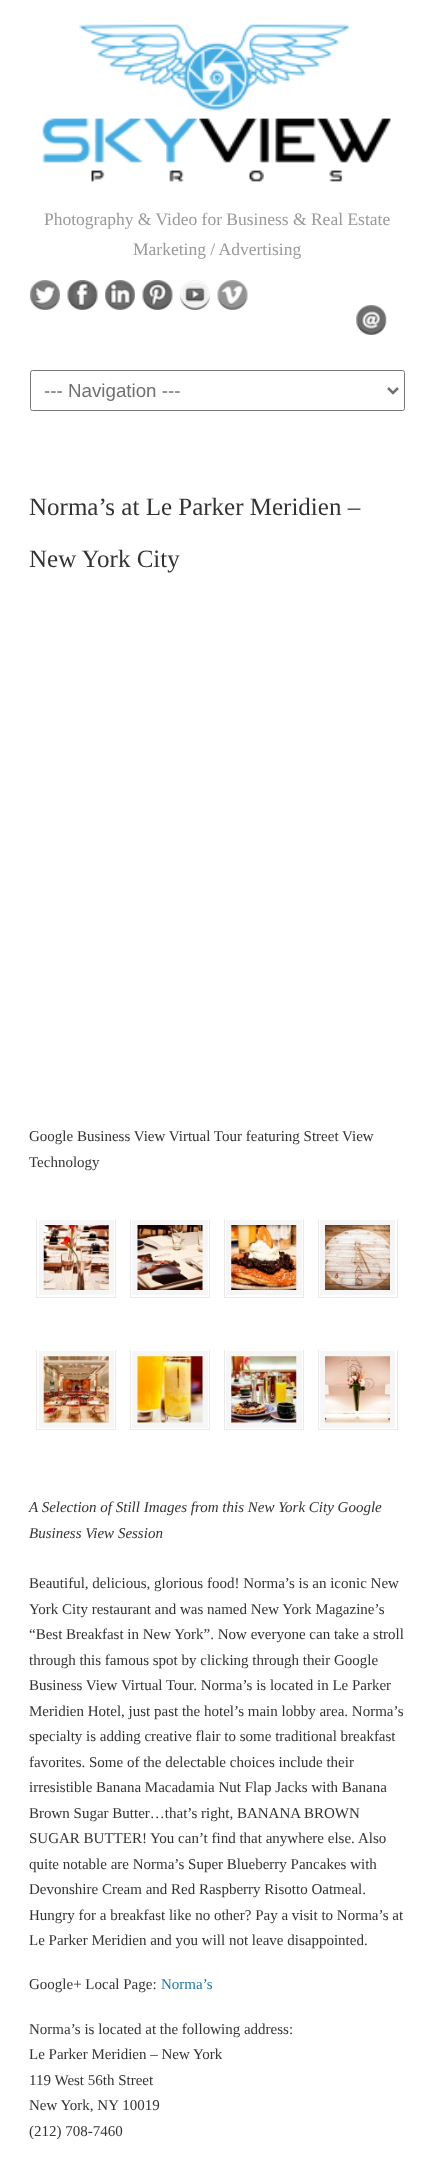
(async () => {
const canvas = document.querySelector("canvas")
canvas.width = 433
canvas.height = 2169
const c = canvas.getContext("2d")
c.miterLimit = 4
c.fontKerning = "normal"
function T(s,x,y){c.fillText(s,x,y)}
function R(x,y,w,h){c.fillRect(x,y,w,h)}
async function I(src,x,y,w,h){const img=new Image();img.src=src;await img.decode();c.drawImage(img,x,y,w,h)}
let path
c.fillStyle="#fff"
R(0,0,433,2169)
await I("1.png",42,24,349,158)
c.font="17.5px Liberation Serif"
c.fillStyle="#999"
T("Photography & Video for Business & Real Estate",44,225)
T("Marketing / Advertising",133,255)
await I("2.png",30,280,30,30)
await I("3.png",67,280,31,30)
await I("4.png",105,280,30,30)
await I("5.png",142,280,31,30)
await I("6.png",180,280,30,30)
await I("7.png",217,280,31,30)
await I("8.png",356,305,31,30)
c.beginPath()
c.roundRect(30.5,370.5,374,40,2)
c.strokeStyle="#767676"
c.stroke()
path = new Path2D("M388 388l5 5l5-5")
c.strokeStyle="#717171"
c.lineWidth=2.5
c.stroke(path)
c.font="18.75px Liberation Sans"
c.fillStyle="#717171"
T("--- Navigation ---",44,397)
c.font="25px Liberation Serif"
c.fillStyle="#333"
T("Norma’s at Le Parker Meridien –",29,515)
T("New York City",29,567)
c.font="15px Liberation Serif"
T("Google Business View Virtual Tour featuring Street View",29,1141)
T("Technology",29,1167)
c.save()
c.beginPath()
c.rect(30,1219,94,86)
c.clip()
c.strokeStyle="#eaeaea"
c.lineWidth=1
c.strokeRect(36.5,1218.5,79,79)
c.restore()
c.fillStyle="#f6f6f6"
R(39,1220,75,75)
await I("9.png",43,1225,66,65)
c.save()
c.beginPath()
c.rect(124,1219,94,86)
c.clip()
c.strokeStyle="#eaeaea"
c.lineWidth=1
c.strokeRect(130.5,1218.5,79,79)
c.restore()
R(132,1220,76,75)
await I("10.png",137,1225,66,65)
c.save()
c.beginPath()
c.rect(218,1219,93,86)
c.clip()
c.strokeStyle="#eaeaea"
c.lineWidth=1
c.strokeRect(224.5,1218.5,79,79)
c.restore()
R(226,1220,76,75)
await I("11.png",231,1225,66,65)
c.save()
c.beginPath()
c.rect(311,1219,94,86)
c.clip()
c.strokeStyle="#eaeaea"
c.lineWidth=1
c.strokeRect(318.5,1218.5,79,79)
c.restore()
R(320,1220,75,75)
await I("12.png",325,1225,65,65)
c.save()
c.beginPath()
c.rect(30,1350,94,86)
c.clip()
c.strokeStyle="#eaeaea"
c.lineWidth=1
c.strokeRect(36.5,1349.5,79,80)
c.restore()
R(39,1351,75,77)
await I("13.png",43,1356,66,67)
c.save()
c.beginPath()
c.rect(124,1350,94,86)
c.clip()
c.strokeStyle="#eaeaea"
c.lineWidth=1
c.strokeRect(130.5,1349.5,79,80)
c.restore()
R(132,1351,76,77)
await I("14.png",137,1356,66,67)
c.save()
c.beginPath()
c.rect(218,1350,93,86)
c.clip()
c.strokeStyle="#eaeaea"
c.lineWidth=1
c.strokeRect(224.5,1349.5,79,80)
c.restore()
R(226,1351,76,77)
await I("15.png",231,1356,66,67)
c.save()
c.beginPath()
c.rect(311,1350,94,86)
c.clip()
c.strokeStyle="#eaeaea"
c.lineWidth=1
c.strokeRect(318.5,1349.5,79,80)
c.restore()
R(320,1351,75,77)
await I("16.png",325,1356,65,67)
c.font="italic 15px Liberation Serif"
c.fillStyle="#333"
T("A Selection of Still Images from this New York City Google",29,1512)
T("Business View Session",29,1538)
c.font="15px Liberation Serif"
T("Beautiful, delicious, glorious food! Norma’s is an iconic New",29,1588)
T("York City restaurant and was named New York Magazine’s",29,1614)
T("“Best Breakfast in New York”. Now everyone can take a stroll",29,1639)
T("through this famous spot by clicking through their Google",29,1665)
T("Business View Virtual Tour. Norma’s is located in Le Parker",29,1690)
T("Meridien Hotel, just past the hotel’s main lobby area. Norma’s",29,1716)
T("specialty is adding creative flair to some traditional breakfast",29,1741)
T("favorites. Some of the delectable choices include their",29,1767)
T("irresistible Banana Macadamia Nut Flap Jacks with Banana",29,1792)
T("Brown Sugar Butter…that’s right, BANANA BROWN",29,1818)
T("SUGAR BUTTER!",29,1843)
T("You can’t find that anywhere else.",150,1843)
T("Also",358,1843)
T("quite notable are Norma’s Super Blueberry Pancakes with",29,1869)
T("Devonshire Cream and Red Raspberry Risotto Oatmeal.",29,1894)
T("Hungry for a breakfast like no other? Pay a visit to Norma’s at",29,1920)
T("Le Parker Meridien and you will not leave disappointed.",29,1945)
T("Google+ Local Page:",29,1989)
c.fillStyle="#1b78a8"
T("Norma’s",161,1989)
c.fillStyle="#333"
T("Norma’s is located at the following address:",29,2034)
T("Le Parker Meridien – New York",29,2059)
T("119 West 56th Street",29,2085)
T("New York, NY 10019",29,2110)
T("(212) 708-7460",29,2136)
})()
